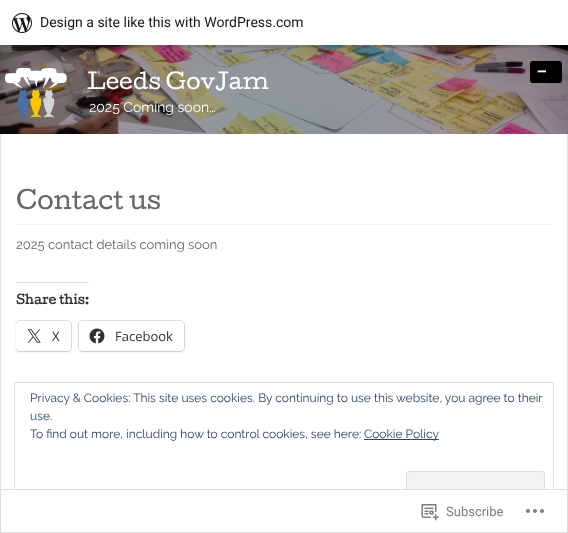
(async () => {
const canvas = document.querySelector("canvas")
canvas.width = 568
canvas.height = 533
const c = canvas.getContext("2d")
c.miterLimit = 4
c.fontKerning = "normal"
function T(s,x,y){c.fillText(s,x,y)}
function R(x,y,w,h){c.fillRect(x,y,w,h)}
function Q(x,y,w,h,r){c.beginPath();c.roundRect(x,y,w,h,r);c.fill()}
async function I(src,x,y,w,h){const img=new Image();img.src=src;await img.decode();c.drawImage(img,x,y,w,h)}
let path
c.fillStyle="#fff"
R(0,0,568,533)
await I("2.png",0,45,568,89)
c.fillStyle="#0000000d"
c.filter="blur(1px)"
c.beginPath()
c.rect(0,1,568,45)
c.fill()
c.filter="none"
c.fillStyle="#00000014"
path = new Path2D("M1 45v3h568v-45h-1v42z")
c.fill(path)
c.fillStyle="#fff"
R(0,0,568,45)
await I("1.png",12,13,20,20)
c.font="14px Roboto"
c.fillStyle="#171717"
T("Design a site like this with WordPress.com",40,27)
await I("3.png",5,68,62,50)
c.font="21px Cutive"
c.fillStyle="#fff"
T("Leeds GovJam",87,89)
c.font="14px Raleway"
T("2025 Coming soon…",89,112)
c.fillStyle="#000"
Q(530,61,32,22,3)
c.font="28px Raleway"
c.fillStyle="#fff"
T("-",536,79)
c.fillStyle="#e2e2e2"
R(567,134,1,399)
R(0,134,1,399)
c.fillStyle="#f2f2f2"
R(16,224,536,1)
c.font="24px Cutive"
c.fillStyle="#666"
T("Contact us",16,209)
c.font="13px Raleway"
T("2025 contact details coming soon",16,249)
c.fillStyle="#dcdcde"
R(16,282,73,1)
c.font="bold 12px Cutive"
c.fillStyle="#333"
T("Share this:",16,304)
c.save()
c.beginPath()
c.rect(16,159,536,268)
c.clip()
c.beginPath()
c.roundRect(15.5,320.5,56,31,4.5)
c.strokeStyle="#e0e0e0"
c.stroke()
c.restore()
c.fillStyle="#0000001f"
c.filter="blur(1px)"
c.beginPath()
c.roundRect(16,322,55,30,4)
c.fill()
c.filter="none"
c.fillStyle="#fff"
Q(16,321,55,30,4)
await I("4.png",27,329,14,14)
c.font="13px Open Sans"
c.fillStyle="#2c3338"
T("X",52,341)
c.beginPath()
c.roundRect(78.5,320.5,106,31,4.5)
c.strokeStyle="#e0e0e0"
c.stroke()
c.fillStyle="#0000001f"
c.filter="blur(1px)"
c.beginPath()
c.roundRect(79,322,105,30,4)
c.fill()
c.filter="none"
c.fillStyle="#fff"
Q(79,321,105,30,4)
await I("5.png",89,328,16,16)
c.fillStyle="#2c3338"
T("Facebook",115,341)
c.strokeStyle="#dedede"
c.strokeRect(14.5,382.5,539,136)
c.font="12px Raleway"
c.fillStyle="#2e4467"
T("Privacy & Cookies: This site uses cookies. By continuing to use this website, you agree to their",30,402)
T("use.",30,420)
T("To find out more, including how to control cookies, see here:",30,438)
R(364,439,75,1)
T("Cookie Policy",364,438)
c.fillStyle="#f3f3f3"
c.beginPath()
c.roundRect(406.5,471.5,138,38,2.5)
c.fill()
c.stroke()
c.fillStyle="#fffffffa"
R(0,489,568,44)
c.strokeStyle="#dcdcdefa"
c.strokeRect(.5,489.5,567,43)
await I("6.png",421,504,18,17)
c.font="13px Roboto"
c.fillStyle="#7b7f84"
T("Subscribe",446,516)
await I("7.png",526,509,18,4)
})()
